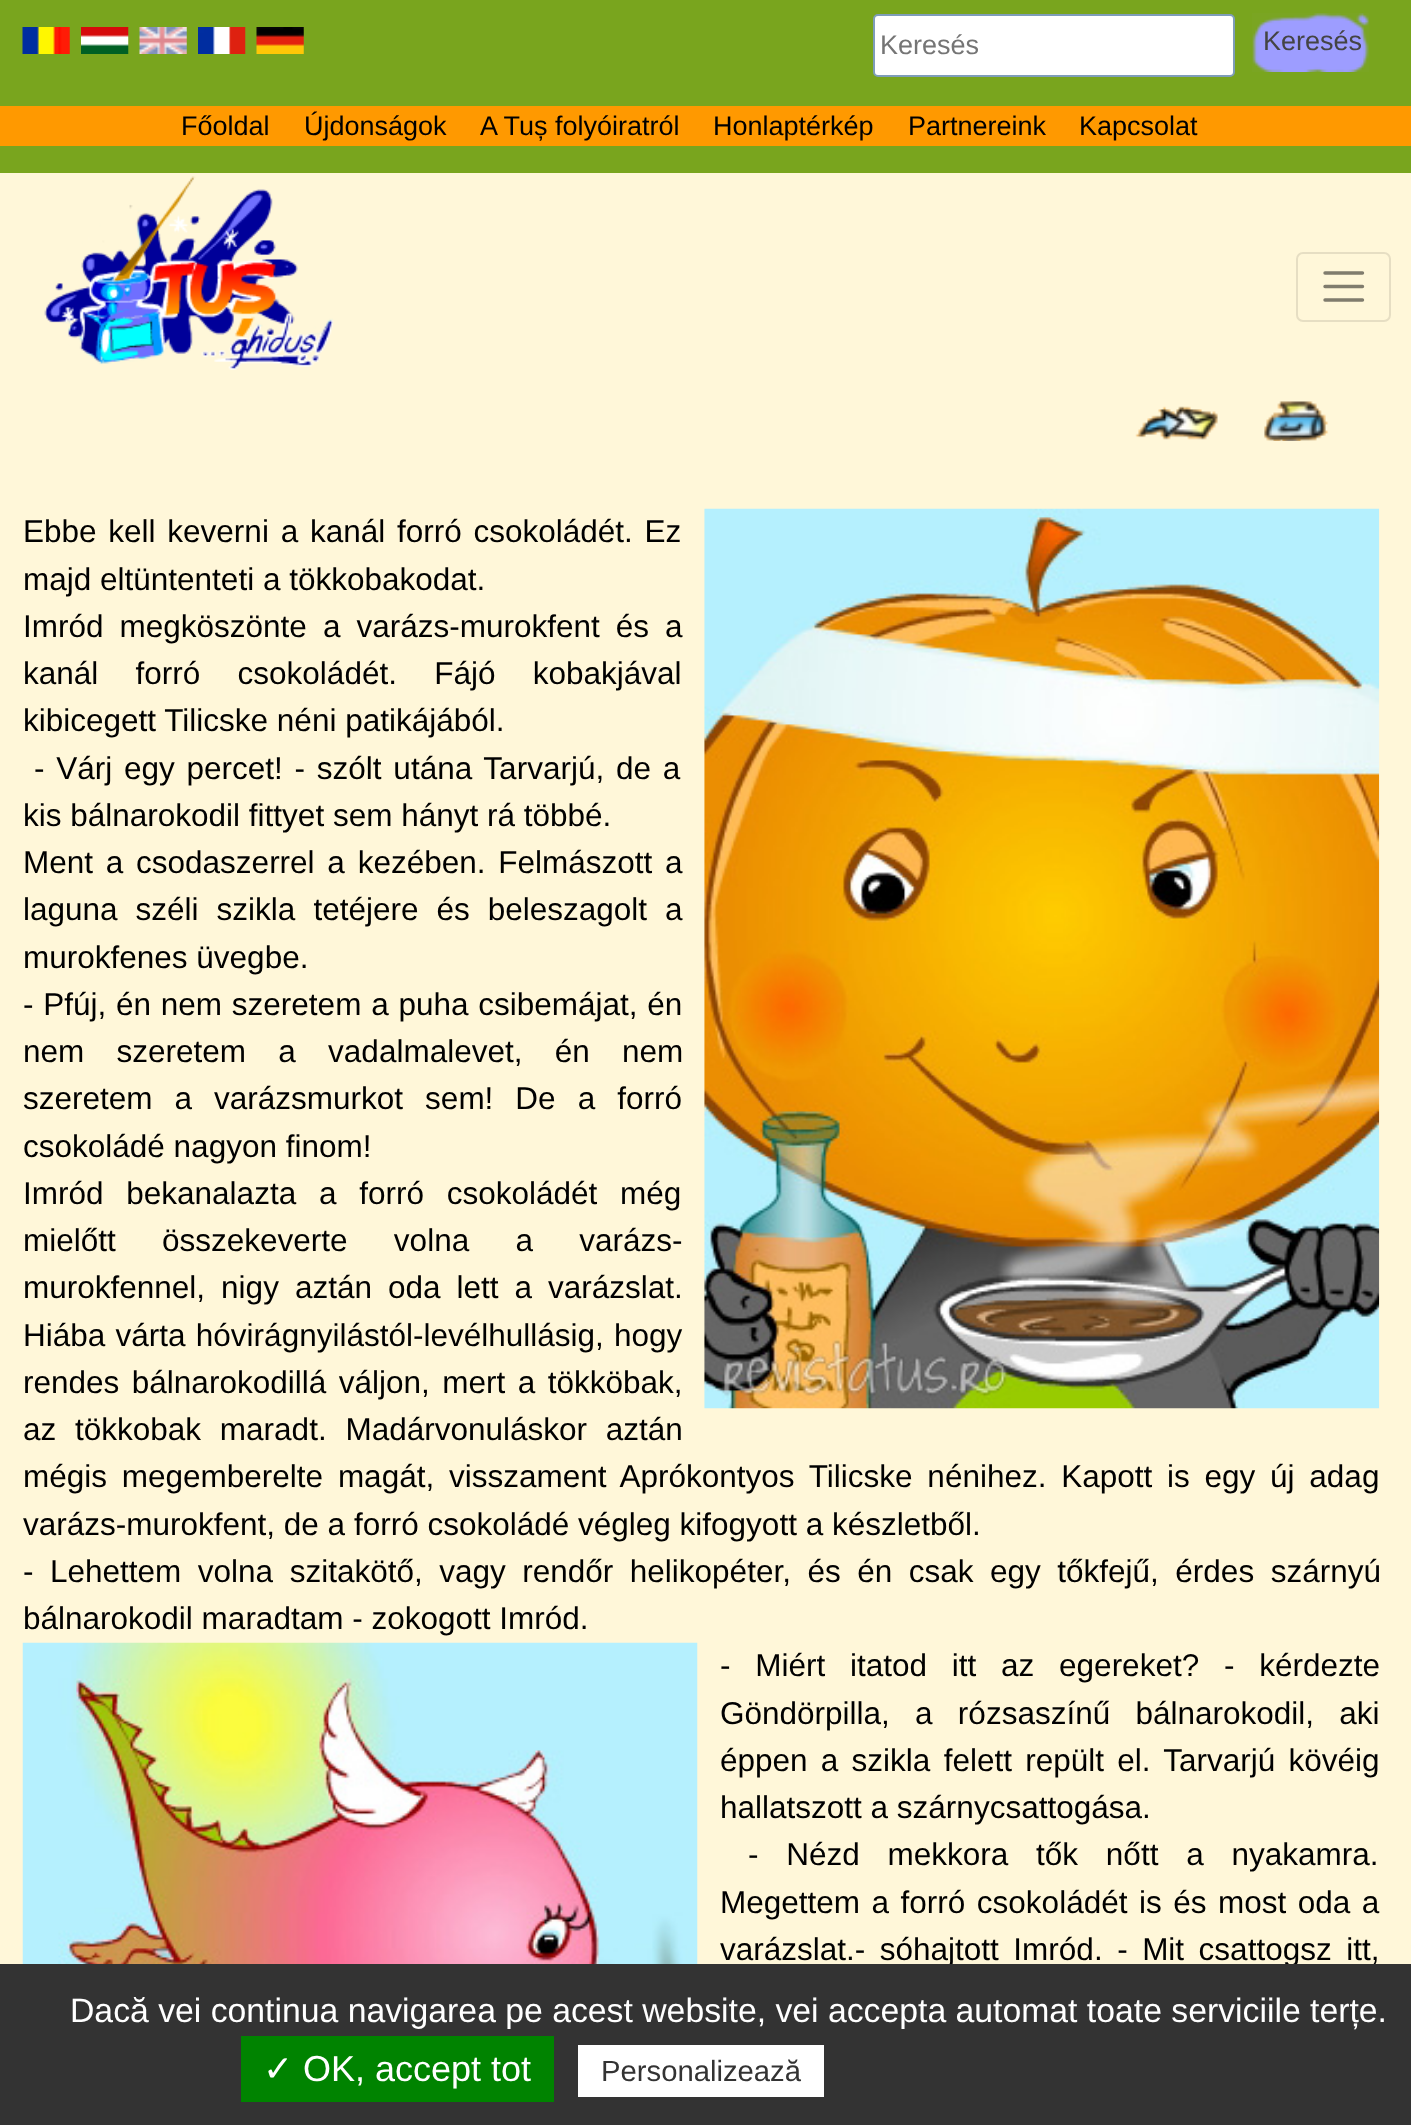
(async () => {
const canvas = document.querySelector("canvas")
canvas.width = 1411
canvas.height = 2125
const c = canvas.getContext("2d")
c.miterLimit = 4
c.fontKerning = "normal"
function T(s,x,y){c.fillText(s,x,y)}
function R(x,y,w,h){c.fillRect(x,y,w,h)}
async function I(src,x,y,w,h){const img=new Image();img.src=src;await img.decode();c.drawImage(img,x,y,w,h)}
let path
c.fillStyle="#79a51e"
R(0,0,1411,2125)
await I("1.png",22,27,48,27)
await I("2.png",81,27,48,27)
await I("3.png",139,27,48,27)
await I("4.png",198,27,48,27)
await I("5.png",256,27,48,27)
c.fillStyle="#fff"
c.beginPath()
c.roundRect(874,15,360,61,4)
c.fill()
c.strokeStyle="#7e9db9"
c.lineWidth=2
c.stroke()
c.font="27px Liberation Sans"
c.fillStyle="#757575"
T("Keresés",880,54)
await I("6.png",1252,13,117,59)
c.fillStyle="#444"
T("Keresés",1263,50)
c.fillStyle="#f90"
R(0,106,1411,40)
c.fillStyle="#000"
T("Főoldal",181,135)
T("Újdonságok",304,135)
T("A Tuș folyóiratról",480,135)
T("Honlaptérkép",713,135)
T("Partnereink",908,135)
T("Kapcsolat",1079,135)
c.fillStyle="#fff7d9"
R(0,173,1411,1791)
await I("7.png",44,176,290,194)
c.beginPath()
c.roundRect(1297,253,93,68,6)
c.strokeStyle="#e6dec3"
c.stroke()
path = new Path2D("M1325 273h37.5m-37.5 13.5h37.5m-37.5 13.5h37.5")
c.strokeStyle="#807c6d"
c.lineWidth=3.4
c.lineCap="round"
c.stroke(path)
await I("8.png",1135,406,83,34)
await I("9.png",1264,401,65,40)
await I("10.png",704,508,676,901)
c.wordSpacing="3px"
c.font="31.5px Liberation Sans"
c.fillStyle="#000"
T("Ebbe kell keverni a kanál forró csokoládét. Ez",23,542)
c.wordSpacing="0px"
T("majd eltüntenteti a tökkobakodat.",23,590)
c.wordSpacing="7.25px"
T("Imród megköszönte a varázs-murokfent és a",23,637)
c.wordSpacing="28.5px"
T("kanál forró csokoládét. Fájó kobakjával",23,684)
c.wordSpacing="0px"
T("kibicegett Tilicske néni patikájából.",23,731)
c.wordSpacing="3px"
T("- Várj egy percet! - szólt utána Tarvarjú, de a",34,779)
c.wordSpacing="0px"
T("kis bálnarokodil fittyet sem hányt rá többé.",23,826)
c.wordSpacing="4px"
T("Ment a csodaszerrel a kezében. Felmászott a",23,873)
c.wordSpacing="9.25px"
T("laguna széli szikla tetéjere és beleszagolt a",23,920)
c.wordSpacing="0px"
T("murokfenes üvegbe.",23,968)
c.wordSpacing="1px"
T("- Pfúj, én nem szeretem a puha csibemájat, én",23,1015)
c.wordSpacing="23.5px"
T("nem szeretem a vadalmalevet, én nem",23,1062)
c.wordSpacing="13.25px"
T("szeretem a varázsmurkot sem! De a forró",23,1109)
c.wordSpacing="0px"
T("csokoládé nagyon finom!",23,1157)
c.wordSpacing="14px"
T("Imród bekanalazta a forró csokoládét még",23,1204)
c.wordSpacing="37.5px"
T("mielőtt összekeverte volna a varázs-",23,1251)
c.wordSpacing="7.25px"
T("murokfennel, nigy aztán oda lett a varázslat.",23,1298)
c.wordSpacing="1.5px"
T("Hiába várta hóvirágnyilástól-levélhullásig, hogy",23,1346)
c.wordSpacing="3.75px"
T("rendes bálnarokodillá váljon, mert a tökköbak,",23,1393)
c.wordSpacing="10px"
T("az tökkobak maradt. Madárvonuláskor aztán",23,1440)
c.wordSpacing="6px"
T("mégis megemberelte magát, visszament Aprókontyos Tilicske nénihez. Kapott is egy új adag",23,1487)
c.wordSpacing="0px"
T("varázs-murokfent, de a forró csokoládé végleg kifogyott a készletből.",23,1535)
c.wordSpacing="7.75px"
T("- Lehettem volna szitakötő, vagy rendőr helikopéter, és én csak egy tőkfejű, érdes szárnyú",23,1582)
c.wordSpacing="0px"
T("bálnarokodil maradtam - zokogott Imród.",23,1629)
await I("11.png",22,1642,676,322)
c.wordSpacing="16px"
T("- Miért itatod itt az egereket? - kérdezte",720,1676)
c.wordSpacing="16.5px"
T("Göndörpilla, a rózsaszínű bálnarokodil, aki",720,1724)
c.wordSpacing="4.5px"
T("éppen a szikla felett repült el. Tarvarjú kövéig",720,1771)
c.wordSpacing="0px"
T("hallatszott a szárnycsattogása.",720,1818)
c.wordSpacing="19px"
T("- Nézd mekkora tők nőtt a nyakamra.",748,1865)
c.wordSpacing="2.75px"
T("Megettem a forró csokoládét is és most oda a",720,1913)
c.wordSpacing="5.75px"
T("varázslat.- sóhajtott Imród. - Mit csattogsz itt,",720,1960)
c.fillStyle="#333"
R(0,1964,1411,161)
c.wordSpacing="0px"
c.font="33.75px Liberation Sans"
c.fillStyle="#fff"
T("Dacă vei continua navigarea pe acest website, vei accepta automat toate serviciile terțe.",70,2022)
c.fillStyle="#008300"
R(241,2036,313,66)
c.font="36px DejaVu Sans"
c.fillStyle="#fff"
T("✓",263,2081)
c.font="36px Liberation Sans"
T("OK, accept tot",303,2081)
R(578,2045,246,52)
c.font="29.25px Liberation Sans"
c.fillStyle="#333"
T("Personalizează",601,2081)
})()
